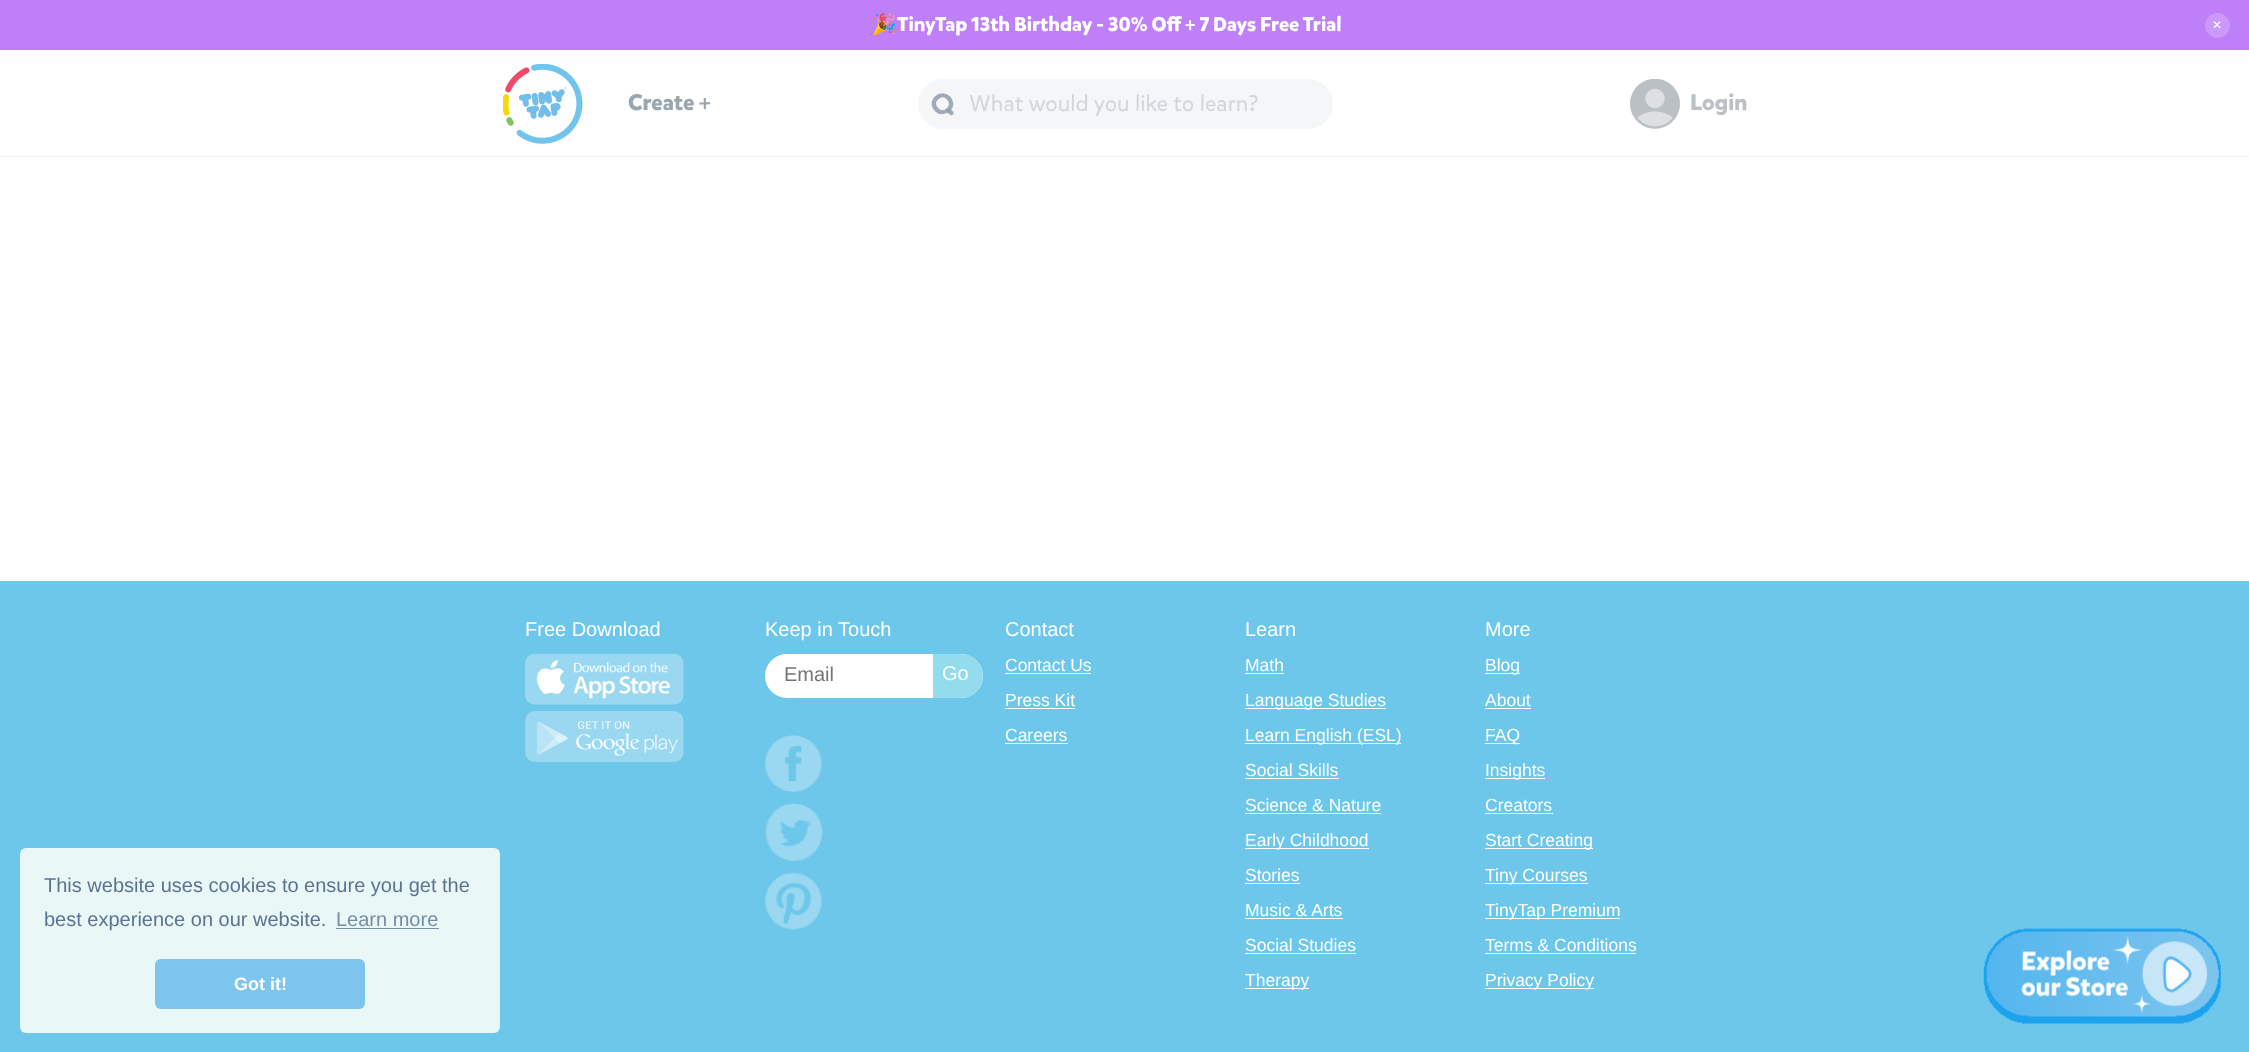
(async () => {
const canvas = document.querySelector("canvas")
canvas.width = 2249
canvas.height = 1052
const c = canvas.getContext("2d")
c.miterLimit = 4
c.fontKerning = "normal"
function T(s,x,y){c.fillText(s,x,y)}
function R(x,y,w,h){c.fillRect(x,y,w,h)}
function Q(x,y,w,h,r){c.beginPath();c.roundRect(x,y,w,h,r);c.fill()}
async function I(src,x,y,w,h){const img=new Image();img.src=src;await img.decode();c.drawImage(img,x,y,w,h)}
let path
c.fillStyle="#fff"
R(0,0,2249,1052)
c.fillStyle="#edeef0"
R(0,156,2249,1)
c.fillStyle="#be7ff8"
R(0,0,2249,50)
c.font="20px Noto Color Emoji"
c.fillStyle="#fff"
T("🎉",872,31)
c.font="bold 20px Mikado"
T("TinyTap 13th Birthday - 30% Off + 7 Days Free Trial",897,31)
c.fillStyle="#cb99f9"
c.beginPath()
c.arc(2217.5,25.5,12.5,0,7)
c.fill()
c.font="12px DejaVu Sans"
c.fillStyle="#fff"
T("✕",2212,29)
await I("2.png",519,86,47,33)
await I("1.png",503,64,80,80)
c.font="bold 22.5px Mikado"
c.fillStyle="#99a6b0"
T("Create +",628,110)
c.fillStyle="#f5f6f8"
Q(918,79,415,50,25)
path = new Path2D("M936.5 98c8-8 20 4 12 11.5c-8 8-20-4-12-11.5z")
c.strokeStyle="#9fabb8"
c.lineWidth=4.4
c.stroke(path)
path = new Path2D("M949 111l2.5 2")
c.strokeStyle="#8a98a8cc"
c.lineCap="round"
c.stroke(path)
c.font="22.5px Mikado"
c.fillStyle="#d2d7dd"
T("What would you like to learn?",969,111)
await I("3.png",1630,79,50,50)
c.font="bold 22.5px Mikado"
c.fillStyle="#bcc1c5"
T("Login",1690,110)
c.fillStyle="#6dc7ea"
R(0,581,2249,471)
c.fillStyle="#eaf7f7"
Q(20,848,480,185,6)
c.font="20px Liberation Sans"
c.fillStyle="#5c7291"
T("This website uses cookies to ensure you get the",44,892)
T("best experience on our website.",44,926)
c.fillStyle="#788da5"
T("Learn more",336,926)
R(336,928,103,1)
c.fillStyle="#7dc5ee"
Q(155,959,210,50,6)
c.font="bold 18px Liberation Sans"
c.fillStyle="#fff"
T("Got it!",234,990)
c.font="20px Liberation Sans"
T("Free Download",525,636)
await I("4.png",525,653,159,52)
await I("5.png",525,711,159,51)
T("Keep in Touch",765,636)
Q(765,654,218,44,22)
c.save()
c.beginPath()
c.roundRect(765,654,218,44,22)
c.clip()
R(776,654,153,41)
c.restore()
c.fillStyle="#757575"
T("Email",784,681)
c.fillStyle="#93dced"
c.beginPath()
c.roundRect(933,654,50,44,[0,22,22,0])
c.fill()
c.fillStyle="#fff"
T("Go",942,680)
await I("6.png",765,735,57,57)
await I("7.png",765,803,58,58)
await I("8.png",765,872,57,58)
T("Contact",1005,636)
c.font="17.5px Liberation Sans"
T("Contact Us",1005,671)
R(1005,673,86,1)
T("Press Kit",1005,706)
R(1005,708,70,1)
T("Careers",1005,741)
R(1005,743,63,1)
c.font="20px Liberation Sans"
T("Learn",1245,636)
c.font="17.5px Liberation Sans"
T("Math",1245,671)
R(1245,673,39,1)
R(1245,708,141,1)
T("Language Studies",1245,706)
R(1245,743,156,1)
T("Learn English (ESL)",1245,741)
T("Social Skills",1245,776)
R(1245,778,94,1)
T("Science & Nature",1245,811)
R(1245,813,136,1)
R(1245,848,124,1)
T("Early Childhood",1245,846)
T("Stories",1245,881)
R(1245,883,55,1)
T("Music & Arts",1245,916)
R(1245,918,98,1)
T("Social Studies",1245,951)
R(1245,953,111,1)
R(1245,988,64,1)
T("Therapy",1245,986)
c.font="20px Liberation Sans"
T("More",1485,636)
R(1485,673,35,1)
c.font="17.5px Liberation Sans"
T("Blog",1485,671)
T("About",1485,706)
R(1485,708,46,1)
R(1485,743,35,1)
T("FAQ",1485,741)
R(1485,778,60,1)
T("Insights",1485,776)
T("Creators",1485,811)
R(1485,813,68,1)
R(1485,848,108,1)
T("Start Creating",1485,846)
R(1485,883,103,1)
T("Tiny Courses",1485,881)
R(1485,918,135,1)
T("TinyTap Premium",1485,916)
T("Terms & Conditions",1485,951)
R(1485,953,151,1)
R(1485,988,109,1)
T("Privacy Policy",1485,986)
await I("9.png",1983,928,238,96)
})()
